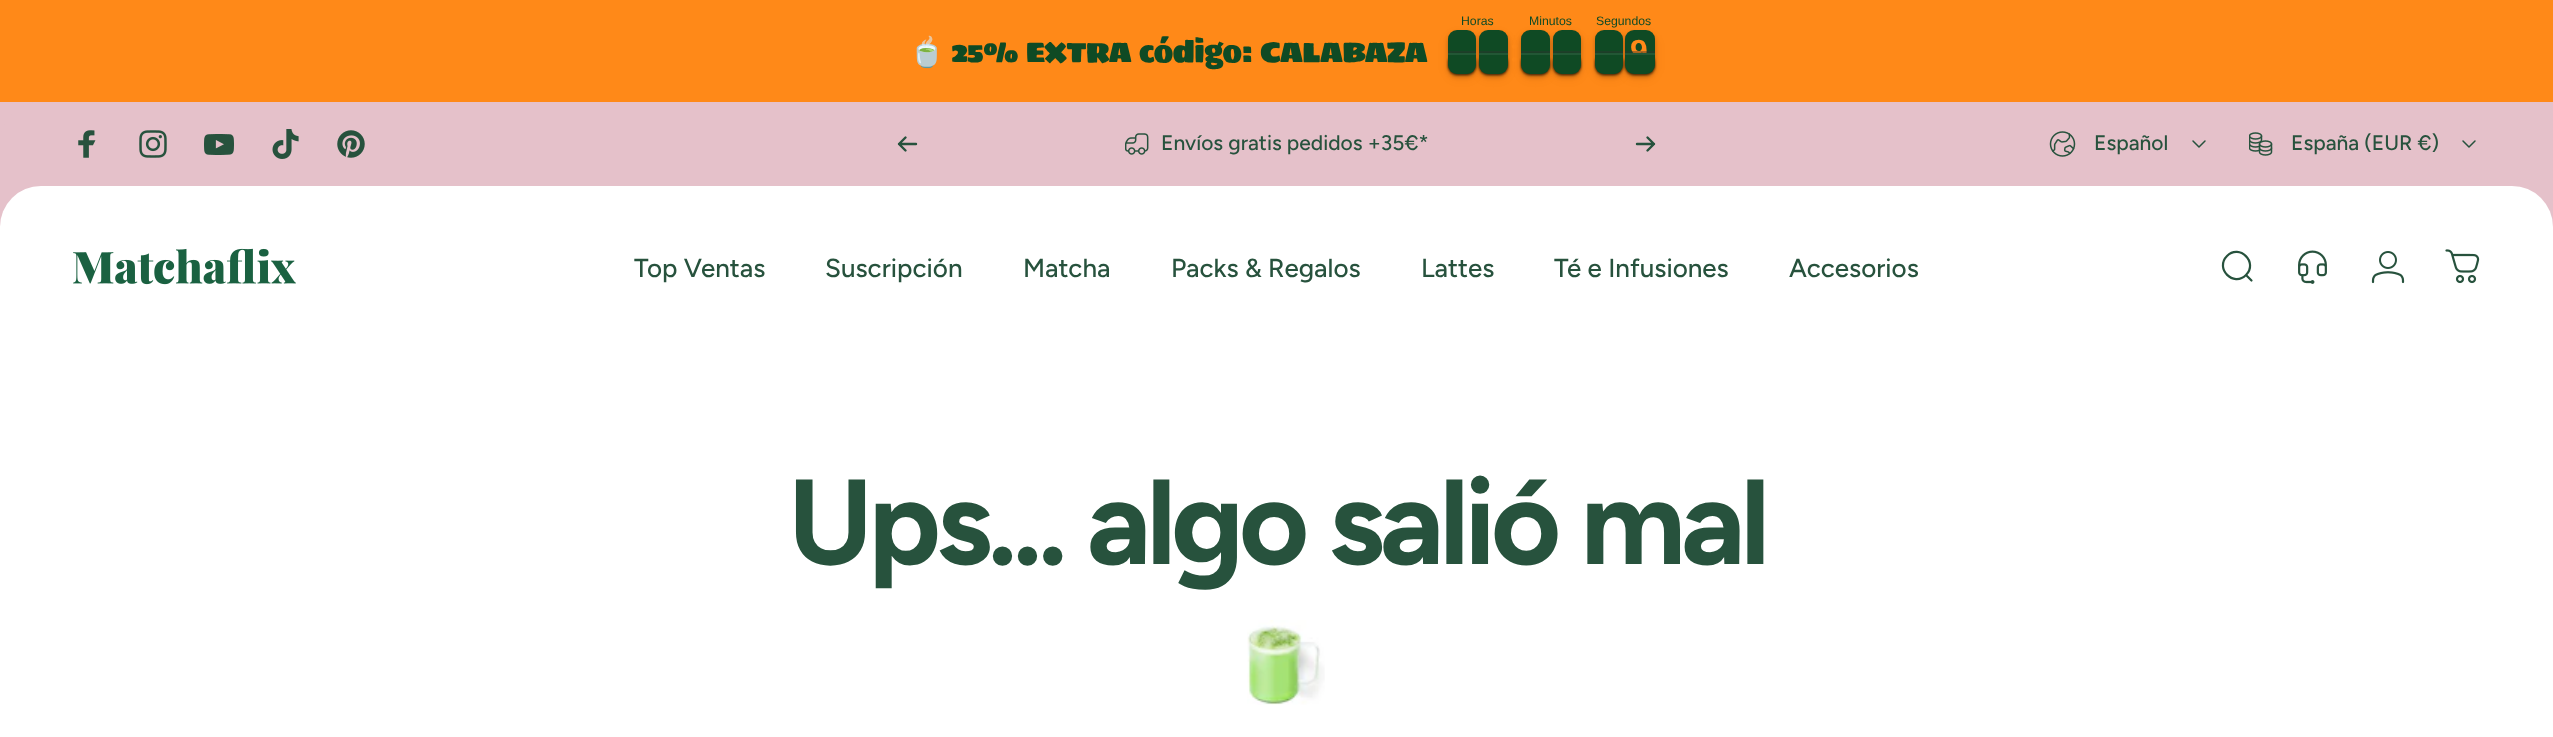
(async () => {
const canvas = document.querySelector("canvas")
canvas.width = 2553
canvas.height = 737
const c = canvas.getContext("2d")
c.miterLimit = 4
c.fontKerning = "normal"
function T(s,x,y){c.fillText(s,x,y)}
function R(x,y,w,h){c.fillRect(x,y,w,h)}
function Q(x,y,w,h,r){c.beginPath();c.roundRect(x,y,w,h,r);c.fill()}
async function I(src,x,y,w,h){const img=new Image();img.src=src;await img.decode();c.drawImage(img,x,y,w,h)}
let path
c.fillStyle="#fff"
R(0,0,2553,737)
c.fillStyle="#ff8918"
R(0,0,2553,102)
c.font="28.75px Noto Color Emoji"
c.fillStyle="#0f4a24"
T("🍵",909,62)
c.font="28.75px Sigmar"
T("25% EXTRA código: CALABAZA",952,62)
c.fillStyle="#0000000d"
c.filter="blur(6px)"
c.beginPath()
c.roundRect(1448,35,28,43,9)
c.fill()
c.filter="none"
c.fillStyle="#0000003d"
c.filter="blur(2px)"
c.beginPath()
c.roundRect(1448,33,28,44,9)
c.fill()
c.filter="none"
c.fillStyle="#00000066"
c.filter="blur(1px)"
c.beginPath()
c.roundRect(1448,54,28,21,9)
c.fill()
c.filter="none"
c.fillStyle="#0000000d"
c.filter="blur(6px)"
c.beginPath()
c.roundRect(1479,35,29,43,9)
c.fill()
c.filter="none"
c.fillStyle="#0000003d"
c.filter="blur(2px)"
c.beginPath()
c.roundRect(1479,33,29,44,9)
c.fill()
c.filter="none"
c.fillStyle="#00000066"
c.filter="blur(1px)"
c.beginPath()
c.roundRect(1479,54,29,21,9)
c.fill()
c.filter="none"
c.fillStyle="#0f4a24"
c.beginPath()
c.roundRect(1448,30,28,23,[9,9,0,0])
c.fill()
c.fillStyle="#33333366"
R(1448,51,28,2)
c.fillStyle="#00000066"
c.filter="blur(1px)"
c.beginPath()
c.roundRect(1448,54,28,21,9)
c.fill()
c.filter="none"
c.fillStyle="#0f4a24"
c.beginPath()
c.roundRect(1448,53,28,21,[0,0,9,9])
c.fill()
c.fillStyle="#cccccc1a"
R(1448,53,28,2)
c.fillStyle="#ff8918"
Q(1512,44,6,5,2.5)
Q(1512,57,6,5,2.5)
c.fillStyle="#0000000d"
c.filter="blur(6px)"
c.beginPath()
c.roundRect(1521,35,29,43,9)
c.fill()
c.filter="none"
c.fillStyle="#0f4a24"
c.beginPath()
c.roundRect(1479,30,29,23,[9,9,0,0])
c.fill()
c.fillStyle="#33333366"
R(1479,51,29,2)
c.fillStyle="#00000066"
c.filter="blur(1px)"
c.beginPath()
c.roundRect(1479,54,29,21,9)
c.fill()
c.filter="none"
c.fillStyle="#0f4a24"
c.beginPath()
c.roundRect(1479,53,29,21,[0,0,9,9])
c.fill()
c.fillStyle="#cccccc1a"
R(1479,53,29,2)
c.font="12.25px Liberation Sans"
c.fillStyle="#0f4a24"
T("Horas",1461,25)
c.fillStyle="#0000003d"
c.filter="blur(2px)"
c.beginPath()
c.roundRect(1521,33,29,44,9)
c.fill()
c.filter="none"
c.fillStyle="#00000066"
c.filter="blur(1px)"
c.beginPath()
c.roundRect(1521,54,29,21,9)
c.fill()
c.filter="none"
c.fillStyle="#0000000d"
c.filter="blur(6px)"
c.beginPath()
c.roundRect(1553,35,28,43,9)
c.fill()
c.filter="none"
c.fillStyle="#0000003d"
c.filter="blur(2px)"
c.beginPath()
c.roundRect(1553,33,28,44,9)
c.fill()
c.filter="none"
c.fillStyle="#00000066"
c.filter="blur(1px)"
c.beginPath()
c.roundRect(1553,54,28,21,9)
c.fill()
c.filter="none"
c.fillStyle="#0f4a24"
c.beginPath()
c.roundRect(1521,30,29,23,[9,9,0,0])
c.fill()
c.fillStyle="#33333366"
R(1521,51,29,2)
c.fillStyle="#00000066"
c.filter="blur(1px)"
c.beginPath()
c.roundRect(1521,54,29,21,9)
c.fill()
c.filter="none"
c.fillStyle="#0f4a24"
c.beginPath()
c.roundRect(1521,53,29,21,[0,0,9,9])
c.fill()
c.fillStyle="#cccccc1a"
R(1521,53,29,2)
c.fillStyle="#0f4a24"
T("Minutos",1529,25)
c.fillStyle="#0000000d"
c.filter="blur(6px)"
c.beginPath()
c.roundRect(1595,35,28,43,9)
c.fill()
c.filter="none"
c.fillStyle="#0f4a24"
c.beginPath()
c.roundRect(1553,30,28,23,[9,9,0,0])
c.fill()
c.fillStyle="#33333366"
R(1553,51,28,2)
c.fillStyle="#00000066"
c.filter="blur(1px)"
c.beginPath()
c.roundRect(1553,54,28,21,9)
c.fill()
c.filter="none"
c.fillStyle="#0f4a24"
c.beginPath()
c.roundRect(1553,53,28,21,[0,0,9,9])
c.fill()
c.fillStyle="#cccccc1a"
R(1553,53,28,2)
c.fillStyle="#0000003d"
c.filter="blur(2px)"
c.beginPath()
c.roundRect(1595,33,28,44,9)
c.fill()
c.filter="none"
c.fillStyle="#00000066"
c.filter="blur(1px)"
c.beginPath()
c.roundRect(1595,54,28,21,9)
c.fill()
c.filter="none"
c.fillStyle="#0000000d"
c.filter="blur(6px)"
c.beginPath()
c.roundRect(1625,35,30,43,9)
c.fill()
c.filter="none"
c.fillStyle="#0000003d"
c.filter="blur(2px)"
c.beginPath()
c.roundRect(1625,33,30,44,9)
c.fill()
c.filter="none"
c.fillStyle="#00000066"
c.filter="blur(1px)"
c.beginPath()
c.roundRect(1625,54,30,21,9)
c.fill()
c.filter="none"
c.fillStyle="#0f4a24"
c.beginPath()
c.roundRect(1595,30,28,23,[9,9,0,0])
c.fill()
c.fillStyle="#33333366"
R(1595,51,28,2)
c.fillStyle="#00000066"
c.filter="blur(1px)"
c.beginPath()
c.roundRect(1595,54,28,21,9)
c.fill()
c.filter="none"
c.fillStyle="#0f4a24"
c.beginPath()
c.roundRect(1595,53,28,21,[0,0,9,9])
c.fill()
c.fillStyle="#cccccc1a"
R(1595,53,28,2)
c.fillStyle="#0f4a24"
T("Segundos",1596,25)
c.beginPath()
c.roundRect(1625,30,30,23,[9,9,0,0])
c.fill()
c.font="bold 32px Liberation Sans"
c.fillStyle="#ff8918"
T("9",1630,62)
c.fillStyle="#33333366"
R(1625,51,30,2)
c.fillStyle="#00000066"
c.filter="blur(1px)"
c.beginPath()
c.roundRect(1625,54,30,21,9)
c.fill()
c.filter="none"
c.fillStyle="#0f4a24"
c.beginPath()
c.roundRect(1625,53,30,21,[0,0,9,9])
c.fill()
c.fillStyle="#cccccc1a"
R(1625,53,30,2)
c.letterSpacing="-4.8px"
c.font="bold 120.75px Figtree"
c.fillStyle="#27523d"
T("Ups... algo salió mal",788,564)
await I("1.png",1247,620,78,85)
c.fillStyle="#e5c1ca"
R(0,102,2553,41)
c.beginPath()
c.roundRect(0,102,2553,125,[41,41,0,0])
c.fill()
await I("2.png",78,130,18,28)
await I("3.png",139,130,28,28)
await I("4.png",204,134,30,21)
await I("5.png",272,129,27,30)
await I("6.png",337,130,28,28)
path = new Path2D("M905.5 137.5l-6.5 6.5m0 0l6.5 6.5m-6.5-6.5h17")
c.strokeStyle="#27523d"
c.lineWidth=2.4
c.lineCap="round"
c.lineJoin="round"
c.stroke(path)
await I("7.png",1125,133,24,22)
c.letterSpacing="0px"
c.font="500 21px Figtree"
c.fillStyle="#27523d"
T("Envíos gratis pedidos +35€*",1161,150)
path = new Path2D("M1637 144h17m0 0l-6.5-6.5m6.5 6.5l-6.5 6.5")
c.stroke(path)
await I("8.png",2049,131,27,26)
T("Español",2094,150)
path = new Path2D("M2193 141l6 6l6-6")
c.lineWidth=1.5
c.stroke(path)
await I("9.png",2249,132,24,24)
T("España (EUR €)",2291,150)
path = new Path2D("M2463 141l6 6l6-6")
c.stroke(path)
c.fillStyle="#fff"
c.beginPath()
c.roundRect(0,186,2553,162,[41,41,0,0])
c.fill()
await I("10.png",73,248,223,37)
c.font="500 26px Figtree"
c.fillStyle="#27523d"
T("Top Ventas",634,277)
T("Suscripción",825,277)
T("Matcha",1023,277)
T("Packs & Regalos",1171,277)
T("Lattes",1421,277)
T("Té e Infusiones",1554,277)
T("Accesorios",1789,277)
path = new Path2D("M2251.5 280.5l-5.5-5.5m0 0c12.5-12.5-6.5-31.5-19-19c-12.5 12.5 6.5 31.5 19 19z")
c.lineWidth=2.2
c.lineJoin="miter"
c.stroke(path)
await I("11.png",2298,250,29,34)
await I("12.png",2371,251,34,33)
await I("13.png",2445,249,35,35)
})()
